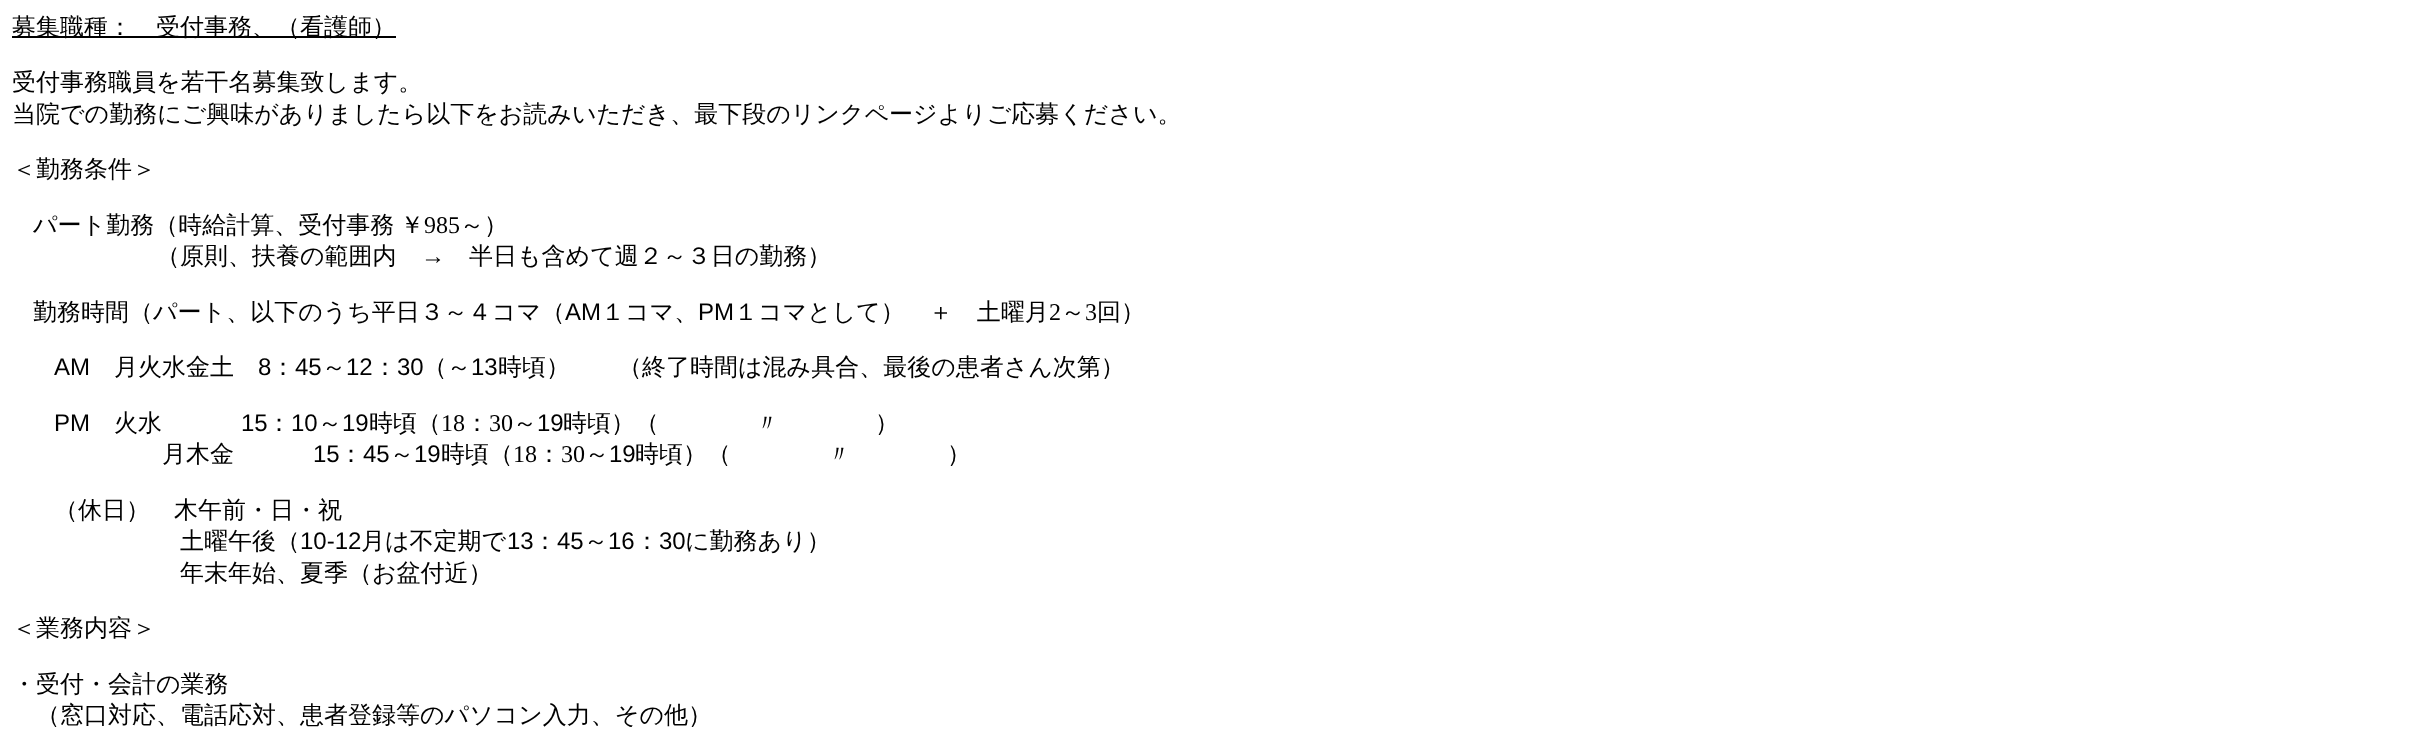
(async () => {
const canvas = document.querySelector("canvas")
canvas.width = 2435
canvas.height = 740
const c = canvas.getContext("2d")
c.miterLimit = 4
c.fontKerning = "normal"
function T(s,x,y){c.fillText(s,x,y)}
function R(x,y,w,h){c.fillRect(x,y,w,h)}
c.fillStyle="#fff"
R(0,0,2435,740)
c.fillStyle="#000"
R(12,36,384,2)
c.font="500 24px WenQuanYi Zen Hei"
T("募集職種：　受付事務、（看護師）",12,35)
T("受付事務職員を若干名募集致します。",12,90)
T("当院での勤務にご興味がありましたら以下をお読みいただき、最下段のリンクページよりご応募ください。",12,122)
T("＜勤務条件＞",12,177)
T("パート勤務（時給計算、受付事務",33,233)
T("￥",400,233)
c.font="24px Liberation Serif"
T("985",424,233)
c.font="500 24px WenQuanYi Zen Hei"
T("～）",460,233)
T("（原則、扶養の範囲内",156,264)
c.font="24px Liberation Serif"
T("→",421,264)
c.font="500 24px WenQuanYi Zen Hei"
T("半日も含めて週２～３日の勤務）",469,264)
T("勤務時間（パート、以下のうち平日３～４コマ（",33,320)
c.font="24px Liberation Sans"
T("AM",565,320)
c.font="500 24px WenQuanYi Zen Hei"
T("１コマ、",601,320)
c.font="24px Liberation Sans"
T("PM",698,320)
c.font="500 24px WenQuanYi Zen Hei"
T("１コマとして）　＋　土曜月",734,320)
c.font="24px Liberation Serif"
T("2",1049,320)
c.font="500 24px WenQuanYi Zen Hei"
T("～",1061,320)
c.font="24px Liberation Serif"
T("3",1085,320)
c.font="500 24px WenQuanYi Zen Hei"
T("回）",1097,320)
c.font="24px Liberation Sans"
T("AM",54,375)
c.font="500 24px WenQuanYi Zen Hei"
T("月火水金土",114,375)
c.font="24px Liberation Sans"
T("8",258,375)
c.font="500 24px WenQuanYi Zen Hei"
T("：",271,375)
c.font="24px Liberation Sans"
T("45",295,375)
c.font="500 24px WenQuanYi Zen Hei"
T("～",322,375)
c.font="24px Liberation Sans"
T("12",346,375)
c.font="500 24px WenQuanYi Zen Hei"
T("：",373,375)
c.font="24px Liberation Sans"
T("30",397,375)
c.font="500 24px WenQuanYi Zen Hei"
T("（～",423,375)
c.font="24px Liberation Sans"
T("13",471,375)
c.font="500 24px WenQuanYi Zen Hei"
T("時頃）　　（終了時間は混み具合、最後の患者さん次第）",498,375)
c.font="24px Liberation Sans"
T("PM",54,431)
c.font="500 24px WenQuanYi Zen Hei"
T("火水",114,431)
c.font="24px Liberation Sans"
T("15",241,431)
c.font="500 24px WenQuanYi Zen Hei"
T("：",267,431)
c.font="24px Liberation Sans"
T("10",291,431)
c.font="500 24px WenQuanYi Zen Hei"
T("～",318,431)
c.font="24px Liberation Sans"
T("19",342,431)
c.font="500 24px WenQuanYi Zen Hei"
T("時頃（",369,431)
c.font="24px Liberation Serif"
T("18",441,431)
c.font="500 24px WenQuanYi Zen Hei"
T("：",465,431)
c.font="24px Liberation Serif"
T("30",489,431)
c.font="500 24px WenQuanYi Zen Hei"
T("～",513,431)
c.font="24px Liberation Sans"
T("19",537,431)
c.font="500 24px WenQuanYi Zen Hei"
T("時頃）（　　　　〃　　　　）",563,431)
T("月木金",162,462)
c.font="24px Liberation Sans"
T("15",313,462)
c.font="500 24px WenQuanYi Zen Hei"
T("：",339,462)
c.font="24px Liberation Sans"
T("45",363,462)
c.font="500 24px WenQuanYi Zen Hei"
T("～",390,462)
c.font="24px Liberation Sans"
T("19",414,462)
c.font="500 24px WenQuanYi Zen Hei"
T("時頃（",441,462)
c.font="24px Liberation Serif"
T("18",513,462)
c.font="500 24px WenQuanYi Zen Hei"
T("：",537,462)
c.font="24px Liberation Serif"
T("30",561,462)
c.font="500 24px WenQuanYi Zen Hei"
T("～",585,462)
c.font="24px Liberation Sans"
T("19",609,462)
c.font="500 24px WenQuanYi Zen Hei"
T("時頃）（　　　　〃　　　　）",635,462)
T("（休日）　木午前・日・祝",54,518)
T("土曜午後（",180,549)
c.font="24px Liberation Sans"
T("10-12",300,549)
c.font="500 24px WenQuanYi Zen Hei"
T("月は不定期で",361,549)
c.font="24px Liberation Sans"
T("13",507,549)
c.font="500 24px WenQuanYi Zen Hei"
T("：",533,549)
c.font="24px Liberation Sans"
T("45",557,549)
c.font="500 24px WenQuanYi Zen Hei"
T("～",584,549)
c.font="24px Liberation Sans"
T("16",608,549)
c.font="500 24px WenQuanYi Zen Hei"
T("：",635,549)
c.font="24px Liberation Sans"
T("30",659,549)
c.font="500 24px WenQuanYi Zen Hei"
T("に勤務あり）",685,549)
T("年末年始、夏季（お盆付近）",180,581)
T("＜業務内容＞",12,636)
T("・受付・会計の業務",12,692)
T("（窓口対応、電話応対、患者登録等のパソコン入力、その他）",36,723)
})()
